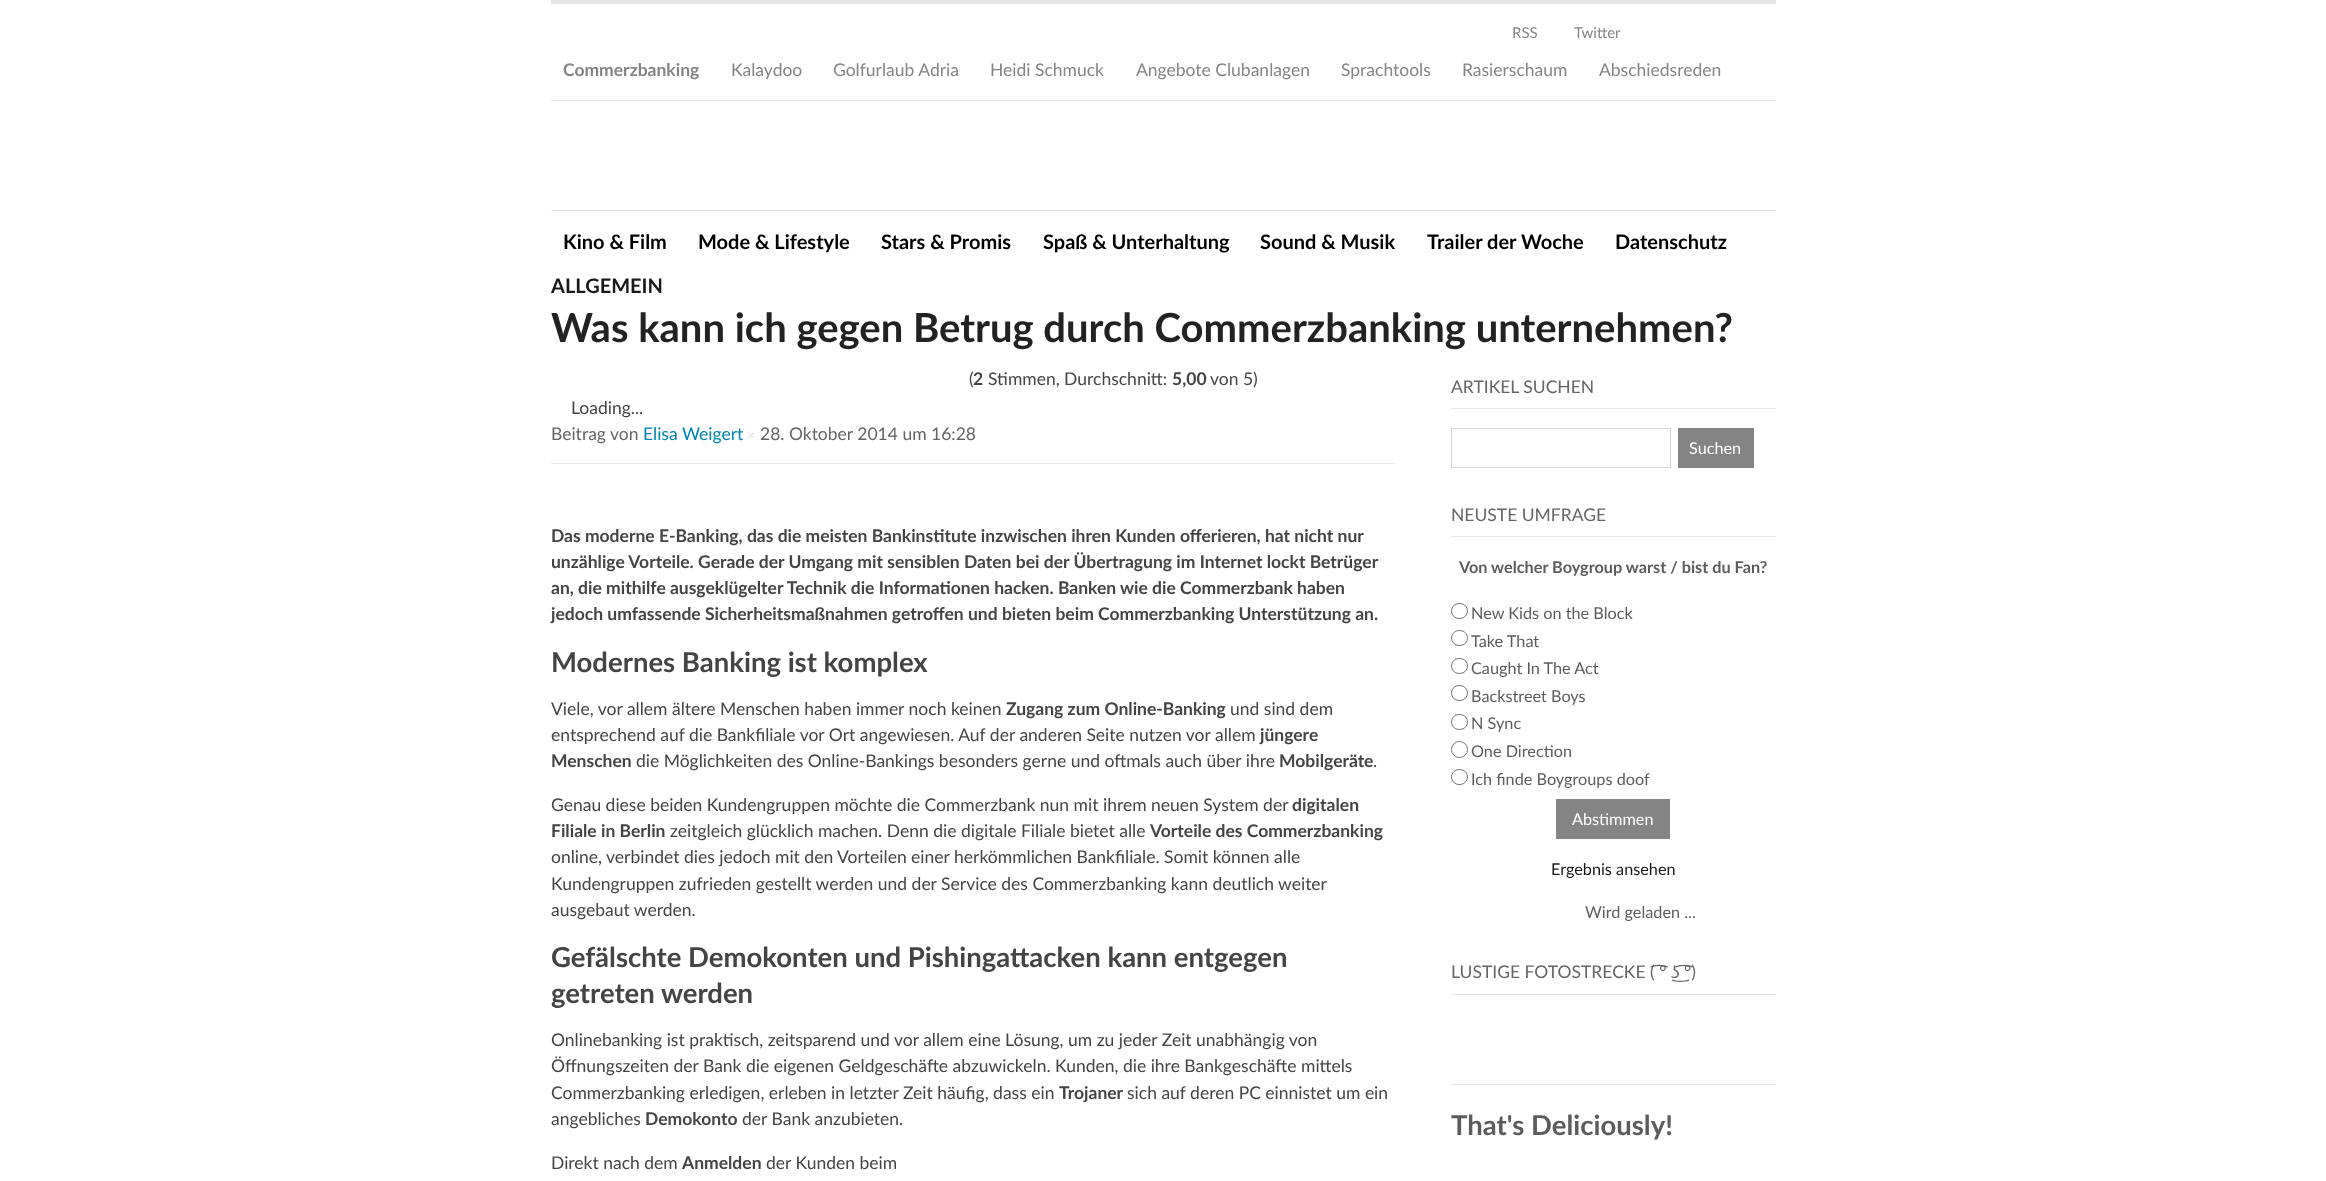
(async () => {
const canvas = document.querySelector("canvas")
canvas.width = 2326
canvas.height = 1181
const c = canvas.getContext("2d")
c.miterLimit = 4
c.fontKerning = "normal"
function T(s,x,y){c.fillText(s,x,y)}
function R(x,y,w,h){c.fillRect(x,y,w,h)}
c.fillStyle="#fff"
R(0,0,2326,1181)
c.fillStyle="#e5e5e5"
R(551,0,1225,4)
R(551,100,1225,1)
c.font="15px Lato"
c.fillStyle="#848484"
T("RSS",1512,38)
T("Twitter",1574,38)
c.font="bold 17.5px Lato"
T("Commerzbanking",563,76)
c.font="17.5px Lato"
T("Kalaydoo",731,76)
T("Golfurlaub Adria",833,76)
T("Heidi Schmuck",990,76)
T("Angebote Clubanlagen",1136,76)
T("Sprachtools",1341,76)
T("Rasierschaum",1462,76)
T("Abschiedsreden",1599,76)
c.fillStyle="#e5e5e5"
R(551,210,1225,1)
c.font="bold 20px Lato"
c.fillStyle="#000"
T("Kino & Film",563,249)
T("Mode & Lifestyle",698,249)
T("Stars & Promis",881,249)
T("Spaß & Unterhaltung",1043,249)
T("Sound & Musik",1260,249)
T("Trailer der Woche",1427,249)
T("Datenschutz",1615,249)
c.fillStyle="#191919"
T("ALLGEMEIN",551,293)
c.font="bold 40px Lato"
c.fillStyle="#222"
T("Was kann ich gegen Betrug durch Commerzbanking unternehmen?",551,342)
c.font="17.5px Lato"
c.fillStyle="#444"
T("(",969,385)
c.font="bold 17.5px Lato"
T("2",973,385)
c.font="17.5px Lato"
T("Stimmen, Durchschnitt:",988,385)
c.font="bold 17.5px Lato"
T("5,00",1172,385)
c.font="17.5px Lato"
T("von 5)",1210,385)
T("Loading...",571,414)
c.fillStyle="#e5e5e5"
R(551,463,844,1)
c.fillStyle="#656565"
T("Beitrag von",551,440)
c.fillStyle="#0084b4"
T("Elisa Weigert",643,440)
c.font="14px Lato"
c.fillStyle="#e5e5e5"
T("×",747,440)
c.font="17.5px Lato"
c.fillStyle="#656565"
T("28. Oktober 2014 um 16:28",760,440)
c.font="bold 17.5px Lato"
c.fillStyle="#444"
T("Das moderne E-Banking, das die meisten Bankinstitute inzwischen ihren Kunden offerieren, hat nicht nur",551,542)
T("unzählige Vorteile. Gerade der Umgang mit sensiblen Daten bei der Übertragung im Internet lockt Betrüger",551,568)
T("an, die mithilfe ausgeklügelter Technik die Informationen hacken. Banken wie die Commerzbank haben",551,594)
T("jedoch umfassende Sicherheitsmaßnahmen getroffen und bieten beim Commerzbanking Unterstützung an.",551,620)
c.font="bold 27.5px Lato"
T("Modernes Banking ist komplex",551,672)
c.font="17.5px Lato"
T("Viele, vor allem ältere Menschen haben immer noch keinen",551,715)
c.font="bold 17.5px Lato"
T("Zugang zum Online-Banking",1006,715)
c.font="17.5px Lato"
T("und sind dem",1230,715)
T("entsprechend auf die Bankfiliale vor Ort angewiesen. Auf der anderen Seite nutzen vor allem",551,741)
c.font="bold 17.5px Lato"
T("jüngere",1260,741)
T("Menschen",551,767)
c.font="17.5px Lato"
T("die Möglichkeiten des Online-Bankings besonders gerne und oftmals auch über ihre",636,767)
c.font="bold 17.5px Lato"
T("Mobilgeräte",1279,767)
c.font="17.5px Lato"
T(".",1373,767)
T("Genau diese beiden Kundengruppen möchte die Commerzbank nun mit ihrem neuen System der",551,811)
c.font="bold 17.5px Lato"
T("digitalen",1292,811)
T("Filiale in Berlin",551,837)
c.font="17.5px Lato"
T("zeitgleich glücklich machen. Denn die digitale Filiale bietet alle",670,837)
c.font="bold 17.5px Lato"
T("Vorteile des Commerzbanking",1150,837)
c.font="17.5px Lato"
T("online, verbindet dies jedoch mit den Vorteilen einer herkömmlichen Bankfiliale. Somit können alle",551,863)
T("Kundengruppen zufrieden gestellt werden und der Service des Commerzbanking kann deutlich weiter",551,890)
T("ausgebaut werden.",551,916)
c.font="bold 27.5px Lato"
T("Gefälschte Demokonten und Pishingattacken kann entgegen",551,967)
T("getreten werden",551,1003)
c.font="17.5px Lato"
T("Onlinebanking ist praktisch, zeitsparend und vor allem eine Lösung, um zu jeder Zeit unabhängig von",551,1046)
T("Öffnungszeiten der Bank die eigenen Geldgeschäfte abzuwickeln. Kunden, die ihre Bankgeschäfte mittels",551,1072)
T("Commerzbanking erledigen, erleben in letzter Zeit häufig, dass ein",551,1099)
c.font="bold 17.5px Lato"
T("Trojaner",1059,1099)
c.font="17.5px Lato"
T("sich auf deren PC einnistet um ein",1127,1099)
T("angebliches",551,1125)
c.font="bold 17.5px Lato"
T("Demokonto",645,1125)
c.font="17.5px Lato"
T("der Bank anzubieten.",742,1125)
T("Direkt nach dem",551,1169)
c.font="bold 17.5px Lato"
T("Anmelden",682,1169)
c.font="17.5px Lato"
T("der Kunden beim",766,1169)
c.fillStyle="#e5e5e5"
R(1451,408,325,1)
c.fillStyle="#656565"
T("ARTIKEL SUCHEN",1451,393)
c.strokeStyle="#d9d6d6"
c.strokeRect(1451.5,428.5,219,39)
c.fillStyle="#848484"
R(1678,428,76,40)
c.font="16.25px Lato"
c.fillStyle="#fff"
T("Suchen",1689,454)
c.fillStyle="#e5e5e5"
R(1451,536,325,1)
c.font="17.5px Lato"
c.fillStyle="#656565"
T("NEUSTE UMFRAGE",1451,521)
c.font="bold 16.25px Lato"
c.fillStyle="#5c5c5c"
T("Von welcher Boygroup warst / bist du Fan?",1459,573)
c.beginPath()
c.roundRect(1451.5,603.5,16,15,7.5)
c.strokeStyle="#767676"
c.stroke()
c.font="16.25px Lato"
T("New Kids on the Block",1471,619)
c.beginPath()
c.roundRect(1451.5,630.5,16,15,7.5)
c.stroke()
T("Take That",1471,647)
c.beginPath()
c.roundRect(1451.5,658.5,16,15,7.5)
c.stroke()
T("Caught In The Act",1471,674)
c.beginPath()
c.roundRect(1451.5,685.5,16,15,7.5)
c.stroke()
T("Backstreet Boys",1471,702)
c.beginPath()
c.roundRect(1451.5,714.5,16,15,7.5)
c.stroke()
T("N Sync",1471,729)
c.beginPath()
c.arc(1459.5,749.5,8,0,7)
c.stroke()
T("One Direction",1471,757)
c.beginPath()
c.roundRect(1451.5,769.5,16,15,7.5)
c.stroke()
T("Ich finde Boygroups doof",1471,785)
c.fillStyle="#848484"
R(1556,799,114,40)
c.fillStyle="#fff"
T("Abstimmen",1572,825)
c.fillStyle="#191919"
T("Ergebnis ansehen",1551,875)
c.fillStyle="#5c5c5c"
T("Wird geladen ...",1585,918)
c.fillStyle="#e5e5e5"
R(1451,994,325,1)
c.font="17.5px Lato"
c.fillStyle="#656565"
T("LUSTIGE FOTOSTRECKE ( ͡° ͜ʖ ͡°)",1451,978)
c.fillStyle="#e5e5e5"
R(1451,1084,325,1)
c.font="bold 27.5px Lato"
c.fillStyle="#5c5c5c"
T("That's Deliciously!",1451,1135)
})()
